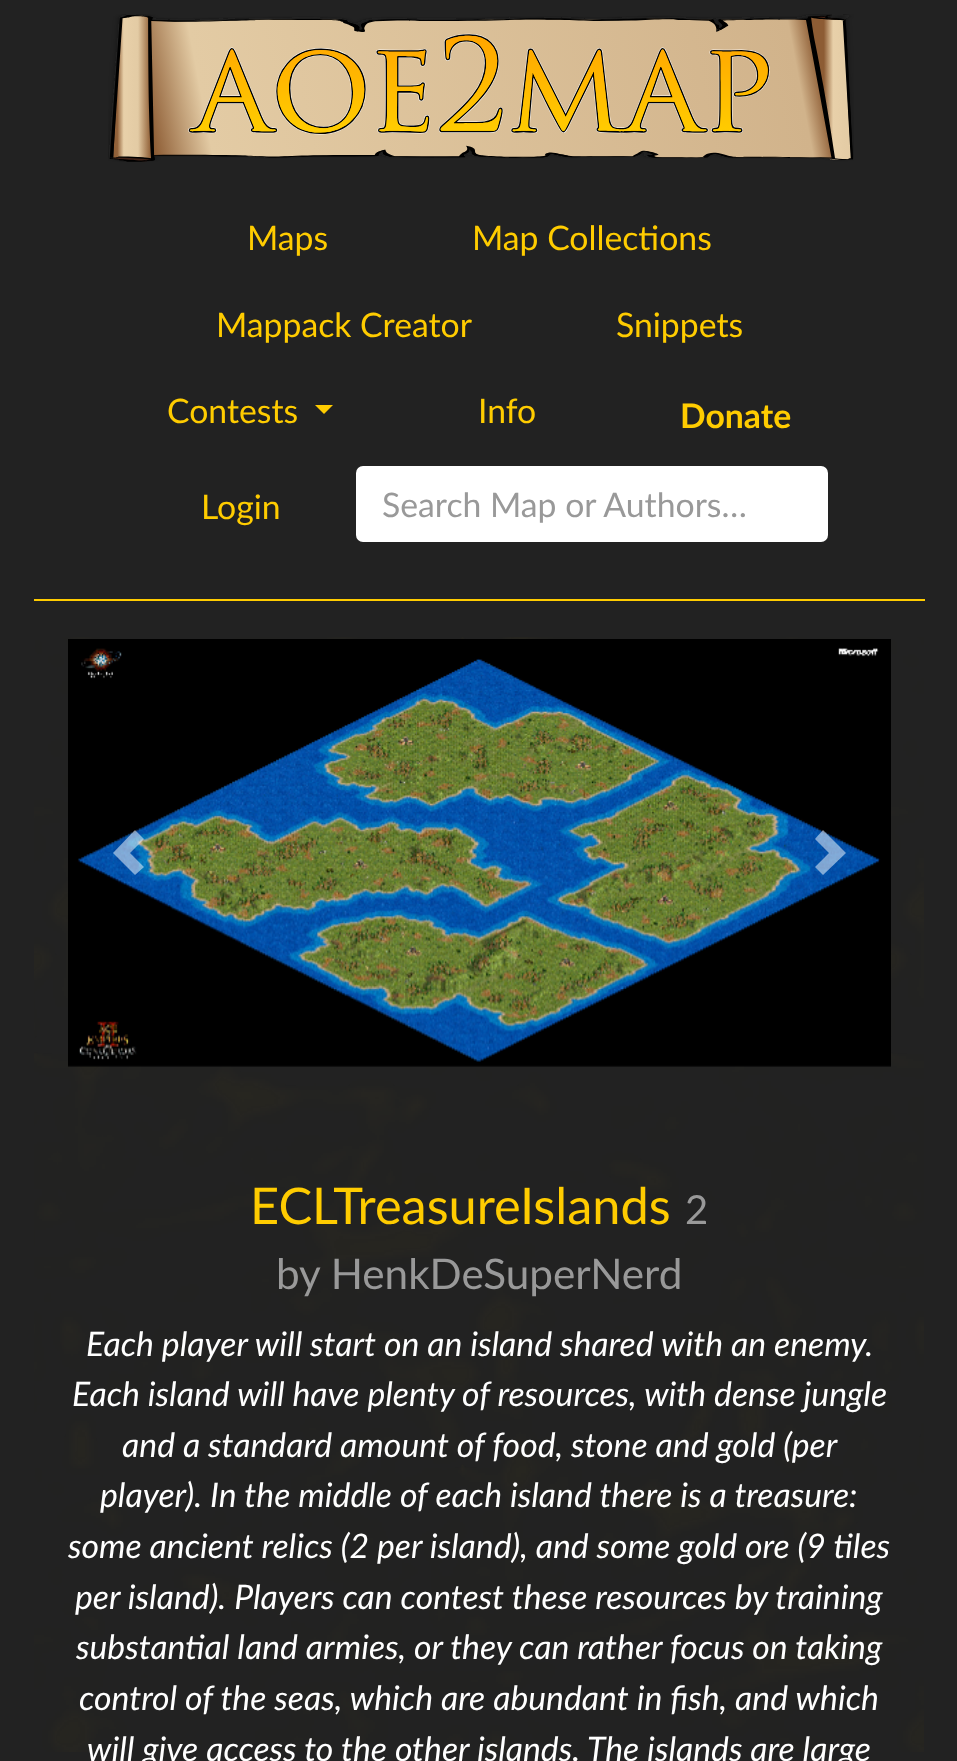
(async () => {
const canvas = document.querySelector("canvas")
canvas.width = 957
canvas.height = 1761
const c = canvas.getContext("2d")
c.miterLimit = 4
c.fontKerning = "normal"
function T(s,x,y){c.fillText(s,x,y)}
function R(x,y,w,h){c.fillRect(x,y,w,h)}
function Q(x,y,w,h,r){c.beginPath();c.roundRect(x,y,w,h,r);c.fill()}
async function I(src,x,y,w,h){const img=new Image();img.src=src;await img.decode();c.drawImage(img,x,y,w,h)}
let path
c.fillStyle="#222"
R(0,0,957,1761)
await I("1.png",108,14,746,148)
c.font="33.75px Lato"
c.fillStyle="#fc0"
T("Maps",247,250)
T("Map Collections",472,250)
T("Mappack Creator",216,337)
T("Snippets",616,337)
T("Contests",167,423)
path = new Path2D("M315 405h18l-9 9z")
c.fill(path)
T("Info",478,423)
c.font="bold 33.75px Lato"
T("Donate",680,428)
c.font="33.75px Lato"
T("Login",201,519)
c.fillStyle="#fff"
Q(356,466,472,76,7)
c.fillStyle="#999"
T("Search Map or Authors…",382,517)
c.fillStyle="#fc0"
R(34,599,891,2)
await I("2.png",34,637,890,1115)
await I("3.png",68,639,823,428)
c.fillStyle="#ffffff80"
path = new Path2D("M135 830l-22 23l22 22l9-8l-14-14l14-14z")
c.fill(path)
path = new Path2D("M823 830l-8 9l14 14l-14 14l8 8l23-22z")
c.fill(path)
c.font="50.5px Lato"
c.fillStyle="#fc0"
T("ECLTreasureIslands",250,1224)
c.font="40px Lato"
c.fillStyle="#999"
T("2",685,1224)
c.font="42.25px Lato"
T("by HenkDeSuperNerd",276,1289)
c.font="italic 33.75px Lato"
c.fillStyle="#fff"
T("Each player will start on an island shared with an enemy.",86,1356)
T("Each island will have plenty of resources, with dense jungle",72,1406)
T("and a standard amount of food, stone and gold (per",122,1457)
T("player). In the middle of each island there is a treasure:",100,1507)
T("some ancient relics (2 per island), and some gold ore (9 tiles",68,1558)
T("per island). Players can contest these resources by training",75,1609)
T("substantial land armies, or they can rather focus on taking",76,1659)
T("control of the seas, which are abundant in fish, and which",79,1710)
T("will give access to the other islands. The islands are large",87,1761)
})()
